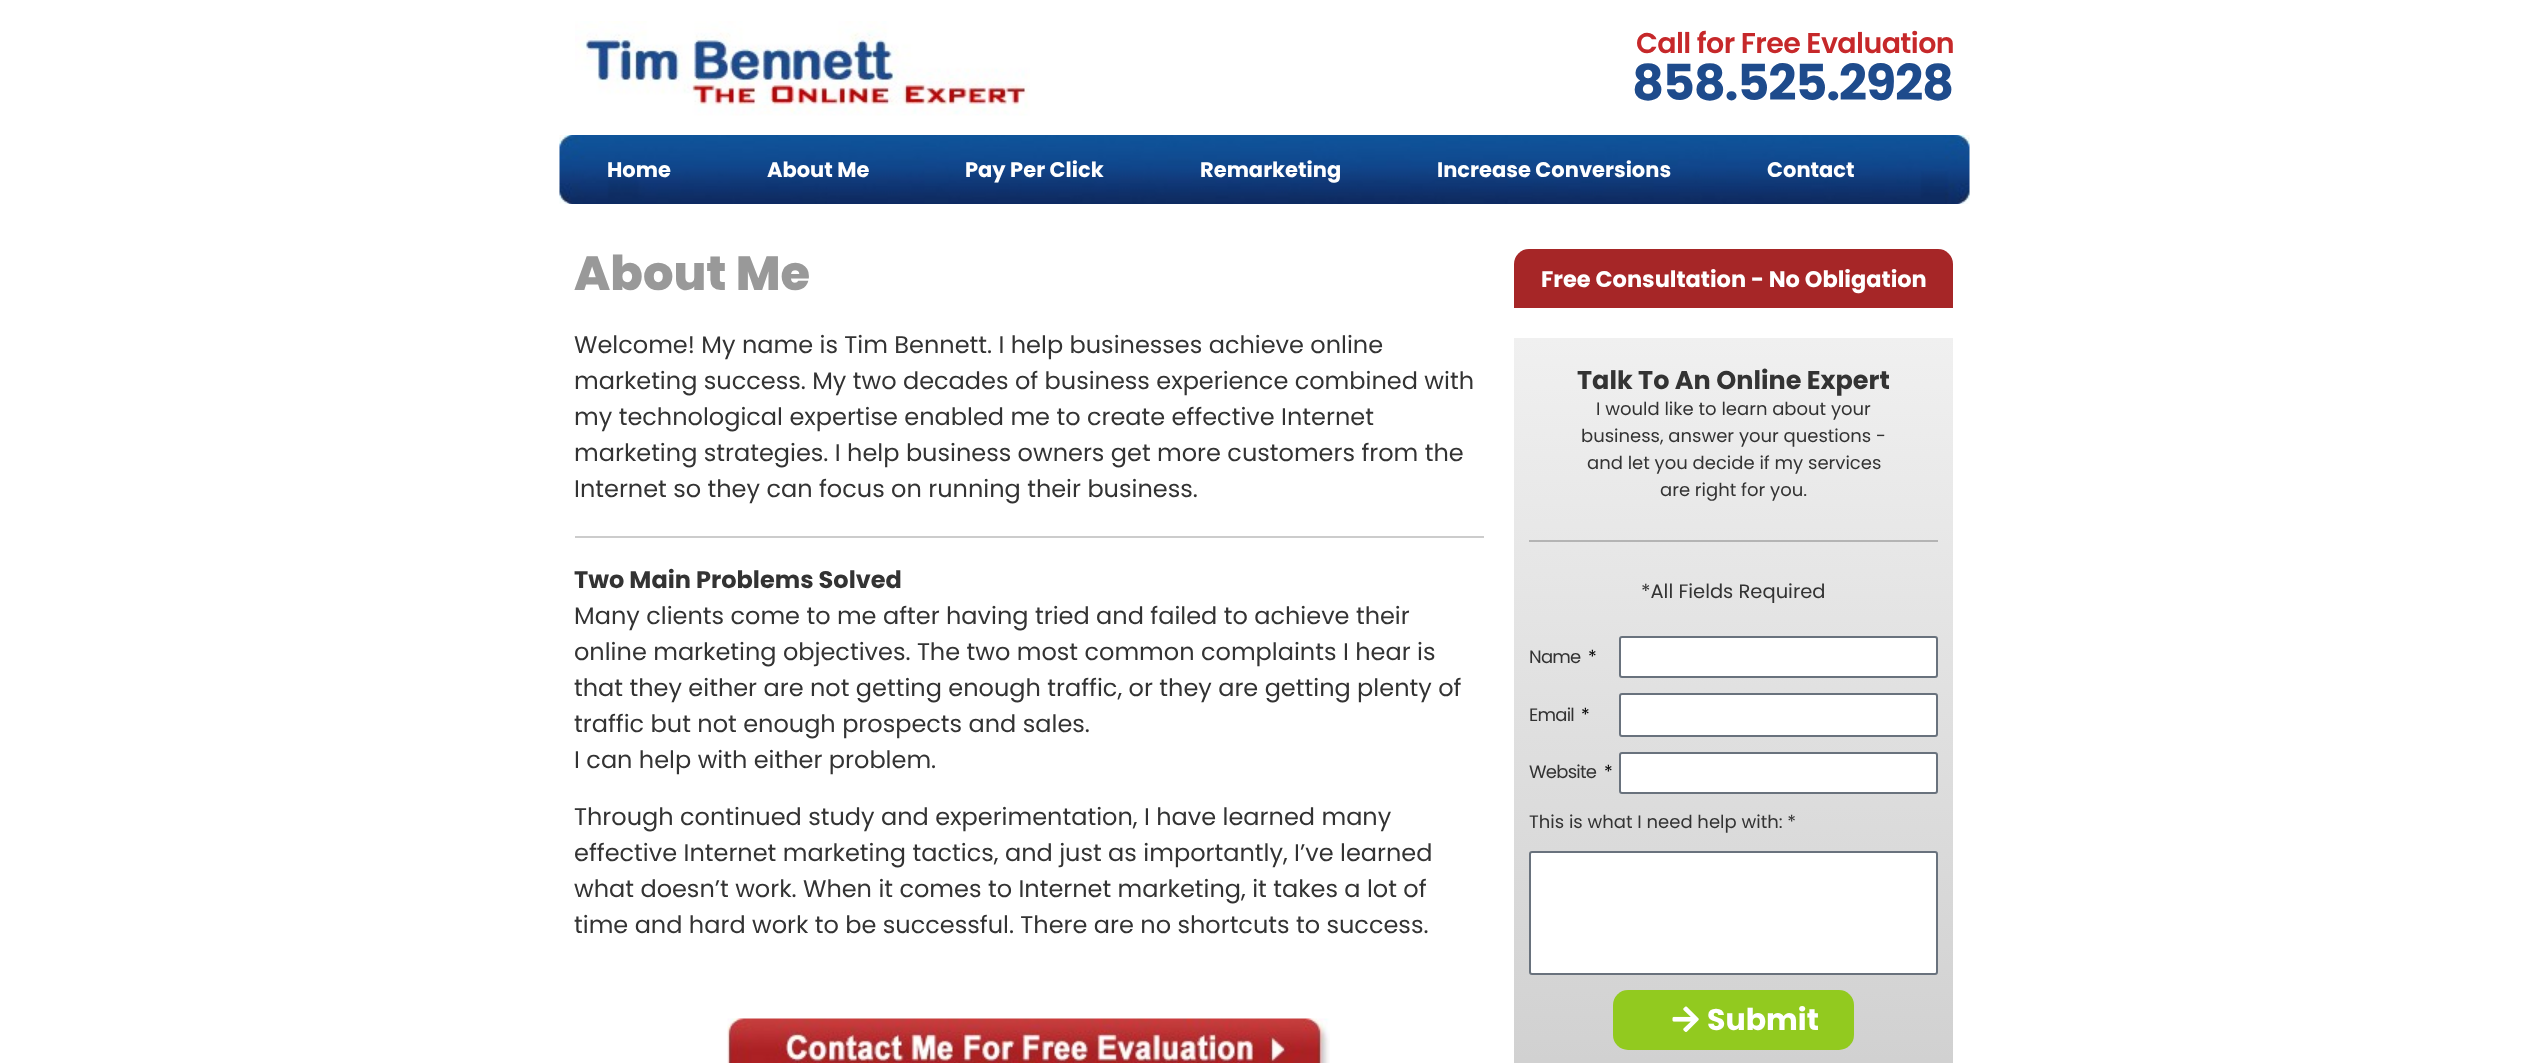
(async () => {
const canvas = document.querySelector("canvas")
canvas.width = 2527
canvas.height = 1063
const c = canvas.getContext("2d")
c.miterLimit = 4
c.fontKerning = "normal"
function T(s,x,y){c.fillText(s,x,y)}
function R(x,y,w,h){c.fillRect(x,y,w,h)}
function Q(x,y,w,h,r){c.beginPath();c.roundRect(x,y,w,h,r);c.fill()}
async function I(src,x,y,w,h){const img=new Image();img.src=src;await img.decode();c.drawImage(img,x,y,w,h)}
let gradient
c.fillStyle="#fff"
R(0,0,2527,1063)
await I("1.png",575,21,455,95)
c.letterSpacing="-0.6px"
c.font="600 28.5px Poppins"
c.fillStyle="#c6282a"
T("Call for Free Evaluation",1636,53)
c.letterSpacing="-1.25px"
c.font="bold 49.5px Poppins"
c.fillStyle="#1e4b8c"
T("858.525.2928",1632,100)
await I("2.png",559,135,1411,69)
c.letterSpacing="0px"
c.font="bold 21px Poppins"
c.fillStyle="#fff"
T("Home",607,177)
T("About Me",767,177)
T("Pay Per Click",965,177)
T("Remarketing",1200,177)
T("Increase Conversions",1437,177)
T("Contact",1767,177)
c.font="800 48px Poppins"
c.fillStyle="#999"
T("About Me",574,290)
c.font="24px Poppins"
c.fillStyle="#333"
T("Welcome! My name is Tim Bennett. I help businesses achieve online",574,353)
T("marketing success. My two decades of business experience combined with",574,389)
T("my technological expertise enabled me to create effective Internet",574,425)
T("marketing strategies. I help business owners get more customers from the",574,461)
T("Internet so they can focus on running their business.",574,497)
c.fillStyle="#ccc"
R(575,536,909,2)
c.font="bold 24px Poppins"
c.fillStyle="#333"
T("Two Main Problems Solved",574,588)
c.font="24px Poppins"
T("Many clients come to me after having tried and failed to achieve their",574,624)
T("online marketing objectives. The two most common complaints I hear is",574,660)
T("that they either are not getting enough traffic, or they are getting plenty of",574,696)
T("traffic but not enough prospects and sales.",574,732)
T("I can help with either problem.",574,768)
T("Through continued study and experimentation, I have learned many",574,825)
T("effective Internet marketing tactics, and just as importantly, I’ve learned",574,861)
T("what doesn’t work. When it comes to Internet marketing, it takes a lot of",574,897)
T("time and hard work to be successful. There are no shortcuts to success.",574,933)
await I("3.png",727,1018,603,45)
c.fillStyle="#a62627"
c.beginPath()
c.roundRect(1514,249,439,59,[15,15,0,0])
c.fill()
c.font="bold 22.5px Poppins"
c.fillStyle="#fff"
T("Free Consultation - No Obligation",1541,287)
gradient = c.createLinearGradient(1733,338,1733,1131)
gradient.addColorStop(0,"#f0f0f0")
gradient.addColorStop(1,"#cecece")
c.fillStyle = gradient
R(1514,338,439,725)
c.font="bold 25.5px Poppins"
c.fillStyle="#333"
T("Talk To An Online Expert",1577,389)
c.font="18px Poppins"
T("I would like to learn about your",1596,415)
T("business, answer your questions -",1581,442)
T("and let you decide if my services",1587,469)
T("are right for you.",1660,496)
c.fillStyle="#b4b4b4"
R(1529,540,409,2)
c.font="19.5px Poppins"
c.fillStyle="#333"
T("*All Fields Required",1641,598)
c.letterSpacing="-0.75px"
c.font="18px Poppins"
T("Name",1529,663)
c.fillStyle="#000"
T("*",1588,663)
c.fillStyle="#fff"
c.beginPath()
c.roundRect(1620,637,317,40,2)
c.fill()
c.strokeStyle="#69727d"
c.lineWidth=2
c.stroke()
c.fillStyle="#333"
T("Email",1529,721)
c.fillStyle="#000"
T("*",1581,721)
c.fillStyle="#fff"
c.beginPath()
c.roundRect(1620,694,317,42,2)
c.fill()
c.stroke()
c.fillStyle="#333"
T("Website",1529,778)
c.fillStyle="#000"
T("*",1604,778)
c.fillStyle="#fff"
c.beginPath()
c.roundRect(1620,753,317,40,2)
c.fill()
c.stroke()
c.letterSpacing="0px"
c.fillStyle="#333"
T("This is what I need help with: *",1529,828)
c.fillStyle="#fff"
c.beginPath()
c.roundRect(1530,852,407,122,2)
c.fill()
c.stroke()
c.fillStyle="#92ca1f"
Q(1613,990,241,60,15)
await I("4.png",1672,1006,27,26)
c.font="bold 30px Poppins"
c.fillStyle="#fff"
T("Submit",1707,1030)
})()
